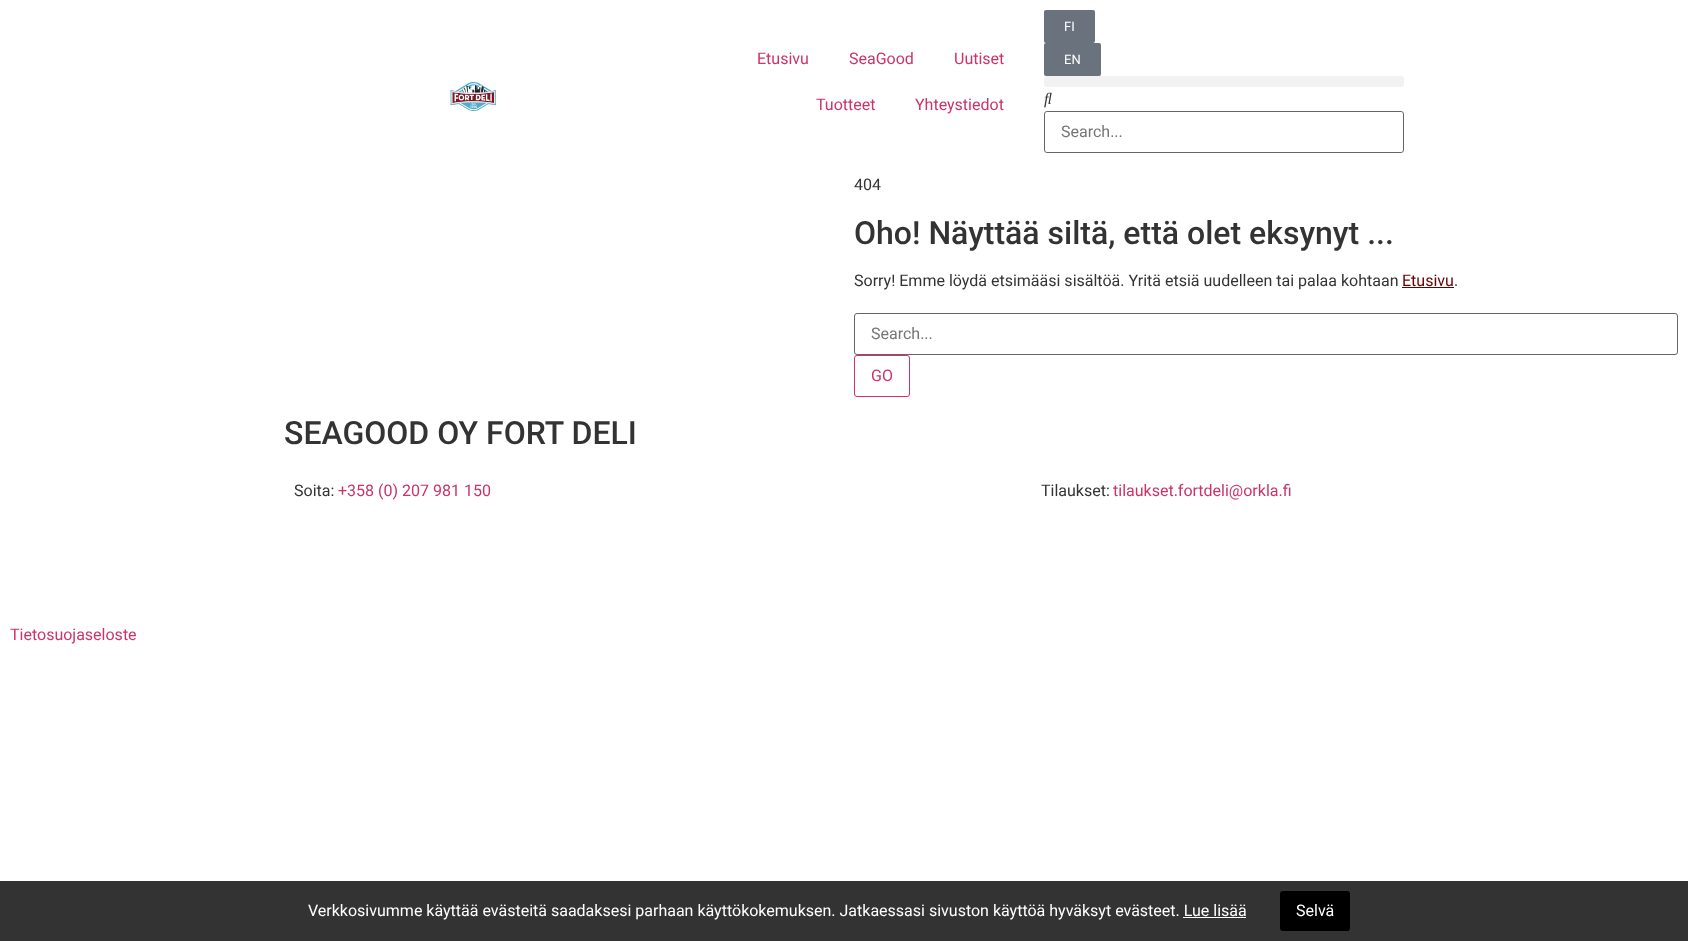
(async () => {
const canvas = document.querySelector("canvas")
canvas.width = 1688
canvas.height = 941
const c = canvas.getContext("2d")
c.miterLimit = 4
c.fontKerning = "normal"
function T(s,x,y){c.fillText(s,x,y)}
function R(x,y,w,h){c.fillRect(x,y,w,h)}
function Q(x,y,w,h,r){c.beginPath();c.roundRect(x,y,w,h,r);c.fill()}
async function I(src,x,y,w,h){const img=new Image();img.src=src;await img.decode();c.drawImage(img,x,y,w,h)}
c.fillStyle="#fff"
R(0,0,1688,941)
await I("1.png",450,82,46,29)
c.font="16px Roboto"
c.fillStyle="#c36"
T("Etusivu",757,64)
T("SeaGood",849,64)
T("Uutiset",954,64)
T("Tuotteet",816,110)
T("Yhteystiedot",915,110)
c.fillStyle="#69727d"
Q(1044,10,51,33,2)
c.font="13px Roboto"
c.fillStyle="#fff"
T("FI",1064,31)
c.fillStyle="#69727d"
Q(1044,43,57,33,2)
c.fillStyle="#fff"
T("EN",1064,64)
c.fillStyle="#f2f2f2"
Q(1044,76,360,11,3)
await I("2.png",1044,92,8,16)
c.beginPath()
c.roundRect(1044.5,111.5,359,41,2.5)
c.strokeStyle="#666"
c.stroke()
c.font="16px Roboto"
c.fillStyle="#757575"
T("Search...",1061,137)
c.fillStyle="#333"
T("404",854,190)
c.font="500 32px Roboto"
T("Oho! Näyttää siltä, että olet eksynyt ...",854,244)
c.font="16px Roboto"
T("Sorry! Emme löydä etsimääsi sisältöä. Yritä etsiä uudelleen tai palaa kohtaan",854,286)
c.fillStyle="#670000"
T("Etusivu",1402,286)
R(1402,287,52,1)
c.fillStyle="#333"
T(".",1454,286)
c.beginPath()
c.roundRect(854.5,313.5,823,41,2.5)
c.stroke()
c.fillStyle="#757575"
T("Search...",871,339)
c.beginPath()
c.roundRect(854.5,355.5,55,41,2.5)
c.strokeStyle="#c36"
c.stroke()
c.fillStyle="#c36"
T("GO",871,381)
c.font="500 32px Roboto"
c.fillStyle="#333"
T("SEAGOOD OY FORT DELI",284,444)
c.font="16px Roboto"
T("Soita:",294,496)
c.fillStyle="#c36"
T("+358 (0) 207 981 150",338,496)
c.fillStyle="#333"
T("Tilaukset:",1041,496)
c.fillStyle="#c36"
T("tilaukset.fortdeli@orkla.fi",1113,496)
T("Tietosuojaseloste",10,640)
c.fillStyle="#333"
R(0,881,1688,60)
c.fillStyle="#fff"
T("Verkkosivumme käyttää evästeitä saadaksesi parhaan käyttökokemuksen. Jatkaessasi sivuston käyttöä hyväksyt evästeet. Lue lisää",308,916)
c.fillStyle="#000"
Q(1280,891,70,40,3)
c.fillStyle="#fff"
T("Selvä",1296,916)
R(1183,917,63,1)
})()
